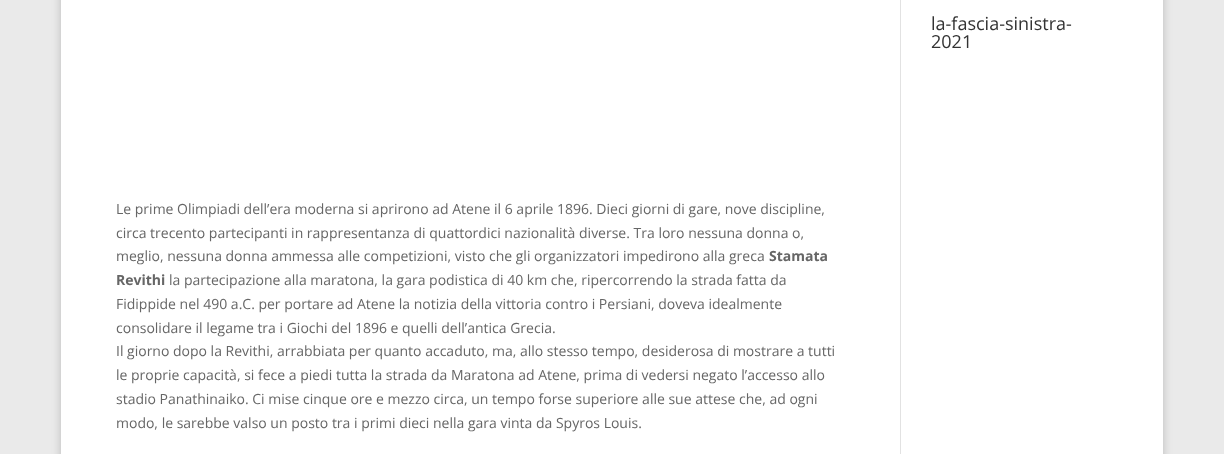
(async () => {
const canvas = document.querySelector("canvas")
canvas.width = 1224
canvas.height = 454
const c = canvas.getContext("2d")
c.miterLimit = 4
c.fontKerning = "normal"
function T(s,x,y){c.fillText(s,x,y)}
function R(x,y,w,h){c.fillRect(x,y,w,h)}
c.fillStyle="#eaeaea"
R(0,0,1224,454)
c.fillStyle="#00000033"
c.filter="blur(5px)"
c.beginPath()
c.rect(61,-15,1102,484)
c.fill()
c.filter="none"
c.fillStyle="#fff"
R(61,0,1102,454)
c.fillStyle="#e2e2e2"
R(900,0,1,454)
c.font="18px Open Sans"
c.fillStyle="#333"
T("la-fascia-sinistra-",931,30)
T("2021",931,48)
c.font="14px Open Sans"
c.fillStyle="#666"
T("Le prime Olimpiadi dell’era moderna si aprirono ad Atene il 6 aprile 1896. Dieci giorni di gare, nove discipline,",116,214)
T("circa trecento partecipanti in rappresentanza di quattordici nazionalità diverse. Tra loro nessuna donna o,",116,238)
T("meglio, nessuna donna ammessa alle competizioni, visto che gli organizzatori impedirono alla greca",116,261)
c.font="bold 14px Open Sans"
T("Stamata",769,261)
T("Revithi",116,285)
c.font="14px Open Sans"
T("la partecipazione alla maratona, la gara podistica di 40 km che, ripercorrendo la strada fatta da",169,285)
T("Fidippide nel 490 a.C. per portare ad Atene la notizia della vittoria contro i Persiani, doveva idealmente",116,309)
T("consolidare il legame tra i Giochi del 1896 e quelli dell’antica Grecia.",116,333)
T("Il giorno dopo la Revithi, arrabbiata per quanto accaduto, ma, allo stesso tempo, desiderosa di mostrare a tutti",116,356)
T("le proprie capacità, si fece a piedi tutta la strada da Maratona ad Atene, prima di vedersi negato l’accesso allo",116,380)
T("stadio Panathinaiko. Ci mise cinque ore e mezzo circa, un tempo forse superiore alle sue attese che, ad ogni",116,404)
T("modo, le sarebbe valso un posto tra i primi dieci nella gara vinta da Spyros Louis.",116,428)
})()
